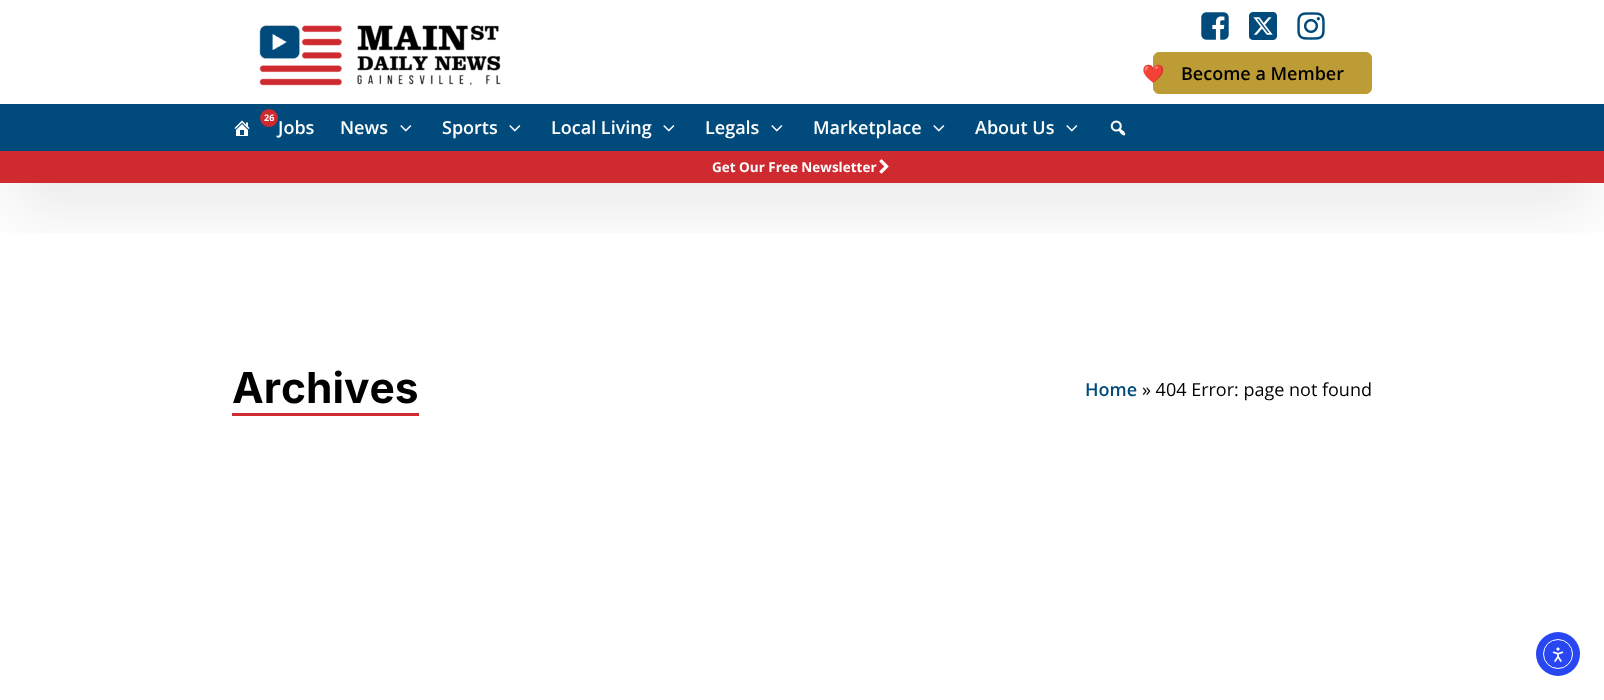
(async () => {
const canvas = document.querySelector("canvas")
canvas.width = 1604
canvas.height = 700
const c = canvas.getContext("2d")
c.miterLimit = 4
c.fontKerning = "none"
function T(s,x,y){c.fillText(s,x,y)}
function R(x,y,w,h){c.fillRect(x,y,w,h)}
async function I(src,x,y,w,h){const img=new Image();img.src=src;await img.decode();c.drawImage(img,x,y,w,h)}
c.fillStyle="#fff"
R(0,0,1604,700)
c.save()
c.beginPath()
c.rect(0,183,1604,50)
c.clip()
c.fillStyle="#00000014"
c.filter="blur(30px)"
c.beginPath()
c.rect(10,50,1584,163)
c.fill()
c.filter="none"
c.restore()
await I("1.png",259,25,242,61)
await I("2.png",1201,12,28,28)
await I("3.png",1249,12,28,28)
await I("4.png",1297,12,28,28)
c.fillStyle="#bd9b35"
c.beginPath()
c.roundRect(1153.5,52.5,218,41,5.5)
c.fill()
c.strokeStyle="#bd9b35"
c.stroke()
c.font="18px Noto Color Emoji"
c.fillStyle="#dfcf9e"
T("❤",1142,80)
c.font="600 18px Open Sans"
c.fillStyle="#000"
T("Become a Member",1181,80)
c.fillStyle="#004b7c"
R(0,104,1604,47)
await I("5.png",234,120,16,16)
c.fillStyle="#fff"
T("Jobs",278,134)
c.fillStyle="#ce2a30"
c.beginPath()
c.arc(269,118,9,0,7)
c.fill()
c.font="bold 9px Open Sans"
c.fillStyle="#fff"
T("26",264,121)
c.font="600 18px Open Sans"
T("News",340,134)
await I("6.png",400,125,12,7)
T("Sports",442,134)
await I("6.png",509,125,12,7)
T("Local Living",551,134)
await I("6.png",663,125,12,7)
T("Legals",705,134)
await I("6.png",771,125,12,7)
T("Marketplace",813,134)
await I("6.png",933,125,12,7)
T("About Us",975,134)
await I("6.png",1066,125,12,7)
await I("7.png",1110,120,16,16)
c.fillStyle="#ce2a30"
R(0,151,1604,32)
c.font="bold 13.5px Open Sans"
c.fillStyle="#fff"
T("Get Our Free Newsletter",712,172)
await I("8.png",879,159,10,15)
c.fillStyle="#ce2a30"
R(232,413,187,3)
c.font="bold 42.5px Inter"
c.fillStyle="#000"
T("Archives",232,403)
c.font="600 18px Open Sans"
c.fillStyle="#004b7c"
T("Home",1085,396)
c.font="18px Open Sans"
c.fillStyle="#000"
T("» 404 Error: page not found",1142,396)
c.fillStyle="#2847f3"
c.beginPath()
c.arc(1558,654,22,0,7)
c.fill()
c.beginPath()
c.arc(1558,654,14.5,0,7)
c.strokeStyle="#fff"
c.stroke()
await I("9.png",1552,647,12,15)
})()
